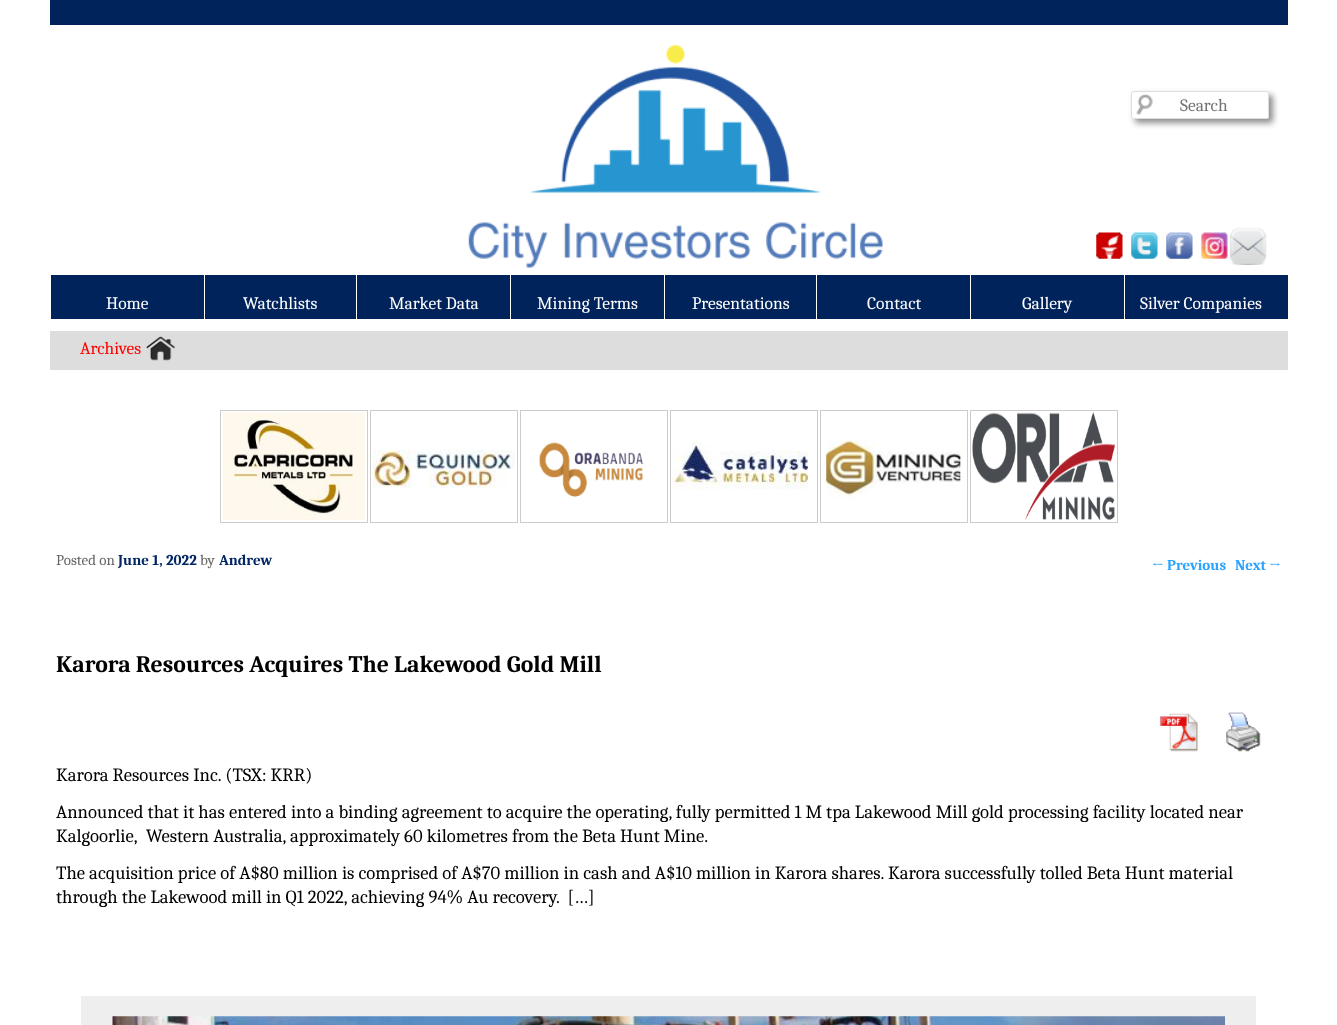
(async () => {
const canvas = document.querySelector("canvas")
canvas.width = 1337
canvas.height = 1025
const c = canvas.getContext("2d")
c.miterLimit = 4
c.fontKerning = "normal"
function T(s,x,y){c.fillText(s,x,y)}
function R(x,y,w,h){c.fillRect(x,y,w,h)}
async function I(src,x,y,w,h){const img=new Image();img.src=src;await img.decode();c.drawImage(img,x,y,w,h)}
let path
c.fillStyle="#fff"
R(0,0,1337,1025)
c.fillStyle="#00235b"
R(50,0,1238,25)
await I("1.png",468,44,415,224)
c.save()
path = new Path2D("M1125 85h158v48h-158zm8.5 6h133c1.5 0 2.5 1 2.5 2.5v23c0 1.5-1 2.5-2.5 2.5h-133c-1.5 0-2.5-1-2.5-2.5v-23c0-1.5 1-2.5 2.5-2.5z")
c.clip(path,"evenodd")
c.fillStyle="#8c8c8c"
c.filter="blur(3px)"
c.beginPath()
c.roundRect(1135,95,138,28,2.5)
c.fill()
c.filter="none"
c.restore()
await I("2.png",1136,94,17,21)
c.beginPath()
c.roundRect(1131.5,91.5,137,27,2)
c.strokeStyle="#ddd"
c.stroke()
c.font="17.5px Caladea"
c.fillStyle="#757575"
T("Search",1180,111)
await I("3.png",1096,232,27,27)
await I("4.png",1131,232,27,27)
await I("5.png",1166,232,27,27)
await I("6.png",1201,232,27,27)
await I("7.png",1230,227,37,38)
c.fillStyle="#00235b"
R(51,275,1237,44)
c.fillStyle="#fff"
T("Home",106,309)
R(204,275,1,44)
T("Watchlists",243,309)
R(356,275,1,44)
T("Market Data",389,309)
R(510,275,1,44)
T("Mining Terms",537,309)
R(664,275,1,44)
T("Presentations",692,309)
R(816,275,1,44)
T("Contact",867,309)
R(970,275,1,44)
T("Gallery",1022,309)
R(1124,275,1,44)
T("Silver Companies",1140,309)
c.fillStyle="#ddd"
R(50,331,1238,39)
c.fillStyle="#f00"
T("Archives",80,354)
await I("8.png",146,336,30,25)
c.strokeStyle="#ccc"
c.strokeRect(220.5,410.5,147,112)
await I("9.png",222,412,143,108)
c.strokeRect(370.5,410.5,147,112)
await I("10.png",372,449,143,40)
c.strokeRect(520.5,410.5,147,112)
await I("11.png",539,442,105,55)
c.strokeRect(670.5,410.5,147,112)
await I("12.png",672,438,137,52)
c.strokeRect(820.5,410.5,147,112)
await I("13.png",826,440,135,59)
c.strokeRect(970.5,410.5,147,112)
await I("14.png",972,412,143,108)
c.font="15px Caladea"
c.fillStyle="#666"
T("Posted on",56,565)
c.font="bold 15px Caladea"
c.fillStyle="#022664"
T("June 1, 2022",118,565)
c.font="15px Caladea"
c.fillStyle="#666"
T("by",200,565)
c.font="bold 15px Caladea"
c.fillStyle="#022664"
T("Andrew",219,565)
c.font="bold 23.75px Caladea"
c.fillStyle="#000"
T("Karora Resources Acquires The Lakewood Gold Mill",56,672)
await I("15.png",1159,713,39,39)
await I("16.png",1226,712,35,40)
c.font="18.7px Caladea"
T("Karora Resources Inc. (TSX: KRR)",56,781)
T("Announced that it has entered into a binding agreement to acquire the operating, fully permitted 1 M tpa Lakewood Mill gold processing facility located near",56,818)
T("Kalgoorlie,",56,842)
T("Western Australia, approximately 60 kilometres from the Beta Hunt Mine.",146,842)
T("The acquisition price of A$80 million is comprised of A$70 million in cash and A$10 million in Karora shares. Karora successfully tolled Beta Hunt material",56,879)
T("through the Lakewood mill in Q1 2022, achieving 94% Au recovery.  […]",56,903)
c.fillStyle="#eee"
R(81,996,1175,29)
await I("17.png",112,1016,1113,9)
c.font="15px Caladea"
c.fillStyle="#29a3ff"
T("←",1152,570)
c.font="bold 15px Caladea"
T("Previous",1167,570)
T("Next",1235,570)
c.font="15px Caladea"
T("→",1269,570)
})()
